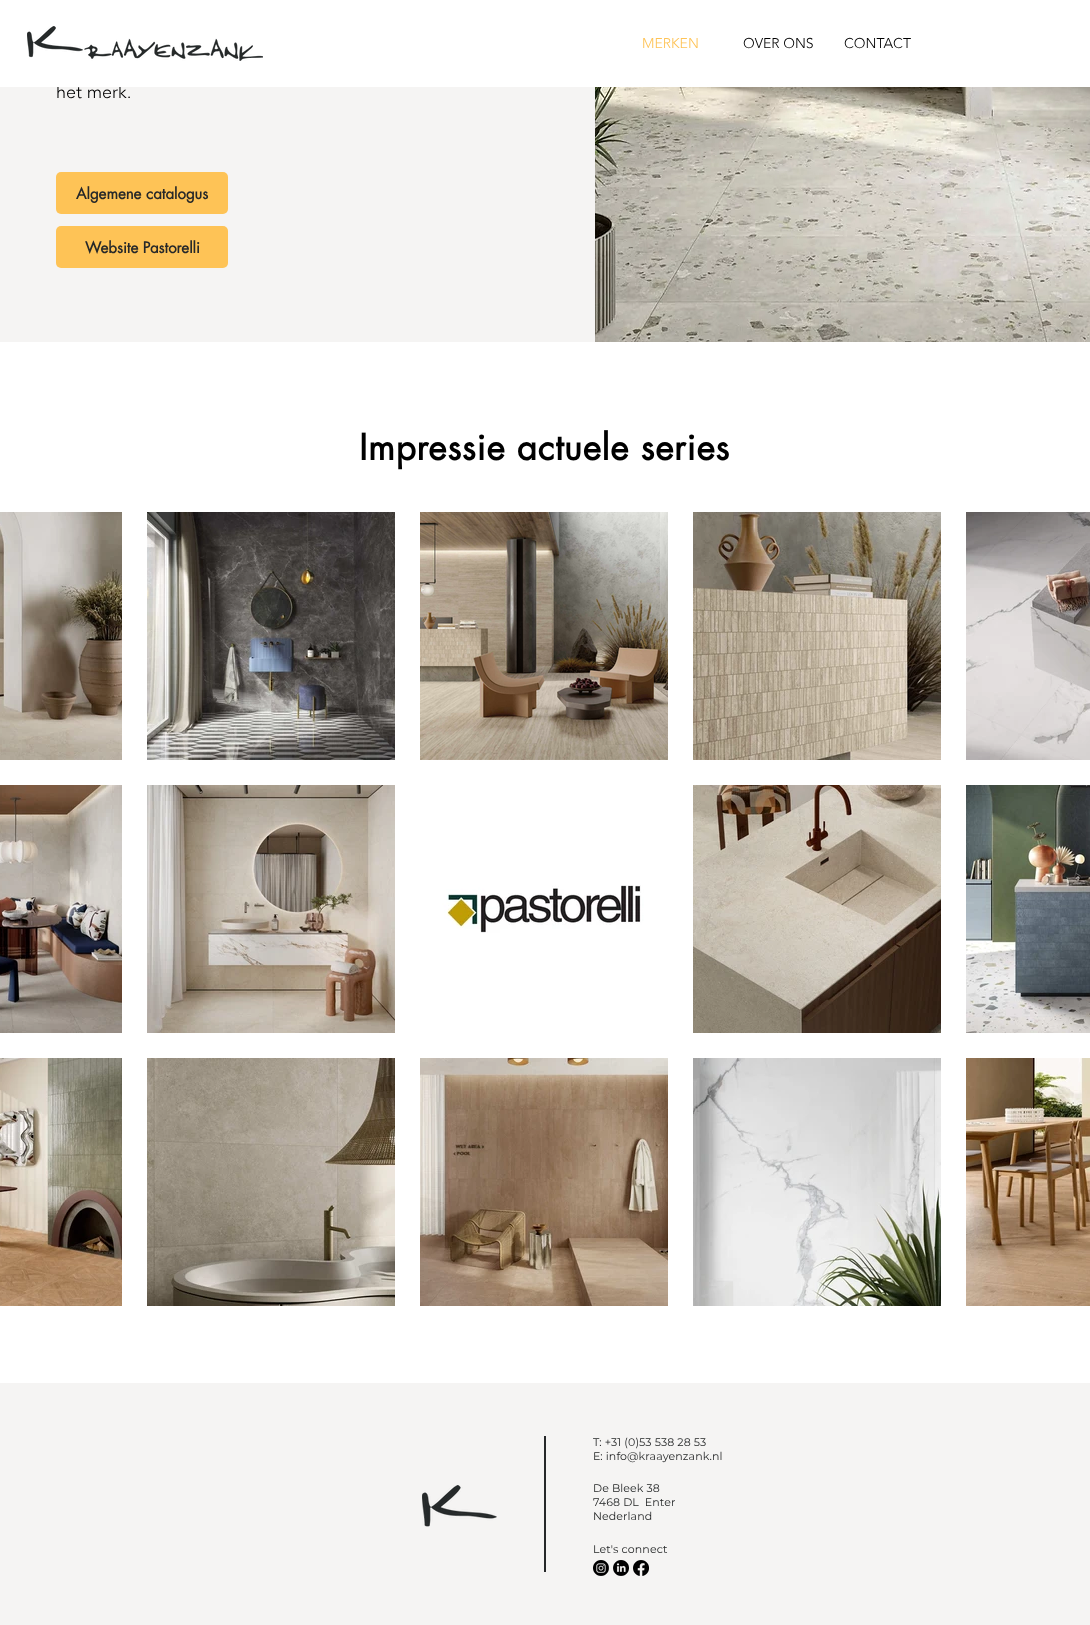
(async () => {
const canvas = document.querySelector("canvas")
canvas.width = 1090
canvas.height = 1625
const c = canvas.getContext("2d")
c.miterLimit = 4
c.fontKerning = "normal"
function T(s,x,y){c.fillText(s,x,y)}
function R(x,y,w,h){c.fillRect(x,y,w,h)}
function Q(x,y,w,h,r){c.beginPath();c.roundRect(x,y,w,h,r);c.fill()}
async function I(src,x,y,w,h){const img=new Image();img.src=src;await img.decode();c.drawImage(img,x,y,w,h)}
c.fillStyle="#fff"
R(0,0,1090,1625)
await I("1.png",27,26,236,35)
c.font="300 14px 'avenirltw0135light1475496'"
c.fillStyle="#fec356"
T("MERKEN",642,48)
c.fillStyle="#000"
T("OVER ONS",743,48)
T("CONTACT",844,48)
c.fillStyle="#f5f4f3"
R(0,87,595,255)
c.font="300 18px 'avenirltw0135light1475496'"
c.fillStyle="#000"
T("het merk.",56,98)
c.fillStyle="#fff"
R(57,84,64,3)
await I("2.png",595,87,495,255)
c.fillStyle="#fec356"
Q(56,172,172,42,5)
c.font="bold 15px futura"
c.fillStyle="#262829"
T("Algemene catalogus",76,199)
c.fillStyle="#fec356"
Q(56,226,172,42,5)
c.fillStyle="#262829"
T("Website Pastorelli",85,253)
c.letterSpacing="0.7px"
c.font="bold 35px futura"
c.fillStyle="#000"
T("Impressie actuele series",359,460)
await I("3.png",0,512,122,248)
await I("4.png",147,512,248,248)
await I("5.png",420,512,248,248)
await I("6.png",693,512,248,248)
await I("7.png",966,512,124,248)
await I("8.png",0,785,122,248)
await I("9.png",147,785,248,248)
await I("10.png",420,851,248,168)
await I("11.png",693,785,248,248)
await I("12.png",966,785,124,248)
await I("13.png",0,1058,122,248)
await I("14.png",147,1058,248,248)
await I("15.png",420,1058,248,248)
await I("16.png",693,1058,248,248)
await I("17.png",966,1058,124,248)
c.fillStyle="#f5f4f3"
R(0,1383,1090,242)
c.fillStyle="#262829"
R(544,1436,2,136)
c.letterSpacing="0.1px"
c.font="11px Montserrat"
T("T: +31 (0)53 538 28 53",593,1446)
T("E: info@kraayenzank.nl",593,1460)
await I("18.png",422,1485,75,42)
T("De Bleek 38",593,1492)
T("7468 DL  Enter",593,1506)
T("Nederland",593,1520)
T("Let's connect",593,1553)
await I("19.png",593,1560,16,16)
await I("20.png",613,1560,16,16)
await I("21.png",633,1560,16,16)
})()
